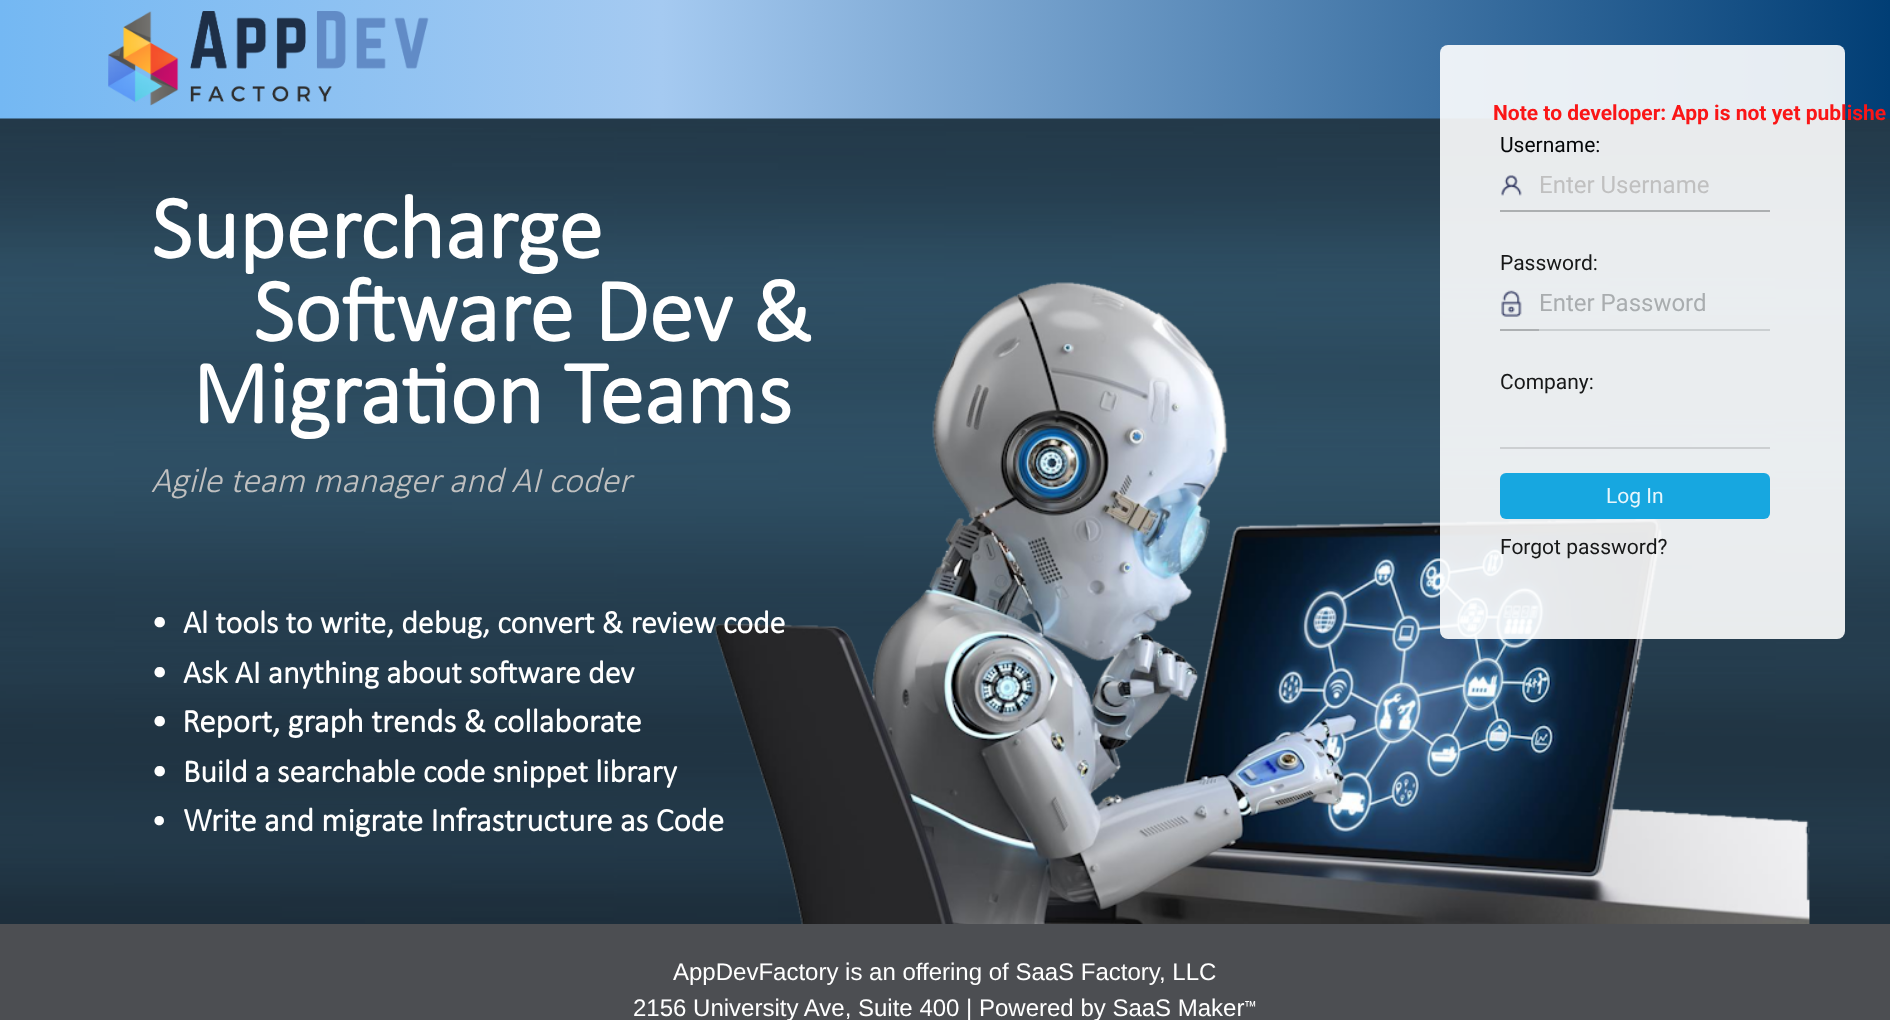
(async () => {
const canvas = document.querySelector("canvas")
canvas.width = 1890
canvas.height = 1020
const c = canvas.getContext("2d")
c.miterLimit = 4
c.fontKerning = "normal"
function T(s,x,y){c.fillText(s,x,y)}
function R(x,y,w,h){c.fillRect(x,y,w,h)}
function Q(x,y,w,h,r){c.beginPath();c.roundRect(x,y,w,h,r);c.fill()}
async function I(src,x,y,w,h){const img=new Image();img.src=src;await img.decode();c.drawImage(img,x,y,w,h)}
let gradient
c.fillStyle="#fff"
R(0,0,1890,1020)
gradient = c.createLinearGradient(0,59,1890,59)
gradient.addColorStop(0,"#74b8f3")
gradient.addColorStop(.35,"#a5caf1")
gradient.addColorStop(1,"#013e75")
c.fillStyle = gradient
R(0,0,1890,119)
await I("1.png",108,11,321,95)
await I("2.png",0,118,1890,806)
c.font="bold 90px Calibri"
c.fillStyle="#fff"
T("Supercharge",151,258)
T("Software Dev &",253,341)
T("Migration Teams",192,423)
c.font="italic 300 36px Calibri"
c.fillStyle="#c0c0c0"
T("Agile team manager and AI coder",151,492)
c.font="bold 33px Calibri"
c.fillStyle="#fff"
T("•",151,633)
c.font="bold 32px Calibri"
T("Al tools to write, debug, convert & review code",183,633)
c.font="bold 33px Calibri"
T("•",151,683)
c.font="bold 32px Calibri"
T("Ask AI anything about software dev",183,683)
c.font="bold 33px Calibri"
T("•  Report, graph trends & collaborate",151,732)
T("•",151,782)
c.font="bold 32px Calibri"
T("Build a searchable code snippet library",183,782)
c.font="300 33px Calibri"
T("•",151,831)
c.font="bold 33px Calibri"
T("Write and migrate Infrastructure as Code",183,831)
c.fillStyle="#4c4e52"
R(0,924,1890,96)
c.font="24px Liberation Sans"
c.fillStyle="#fff"
T("AppDevFactory is an offering of SaaS Factory, LLC",673,980)
T("2156 University Ave, Suite 400 | Powered by SaaS Maker",633,1016)
c.font="21px Roboto"
T("™",1244,1016)
c.fillStyle="#ffffffe6"
Q(1440,45,405,594,8)
c.font="bold 21px Roboto"
c.fillStyle="#fa1617"
T("Note to developer: App is not yet publishe",1493,120)
c.font="21px Roboto"
c.fillStyle="#040608"
T("Username:",1500,152)
c.fillStyle="#acafb1"
R(1500,210,270,2)
await I("3.png",1501,175,21,21)
c.font="24px Roboto"
c.fillStyle="#c0c0c0"
T("Enter Username",1539,193)
c.font="21px Roboto"
c.fillStyle="#171818"
T("Password:",1500,270)
c.fillStyle="#adb0b2"
R(1500,329,41,2)
await I("4.png",1501,290,21,27)
c.fillStyle="#cbcfd1"
R(1539,329,231,2)
c.font="24px Roboto"
c.fillStyle="#a9adaf"
T("Enter Password",1539,311)
c.font="21px Roboto"
c.fillStyle="#171818"
T("Company:",1500,389)
c.fillStyle="#cccfd1"
R(1500,447,270,2)
c.fillStyle="#009edee6"
Q(1500,473,270,46,6)
c.fillStyle="#e8f6fc"
T("Log In",1606,503)
c.fillStyle="#171818"
T("Forgot password?",1500,554)
})()
